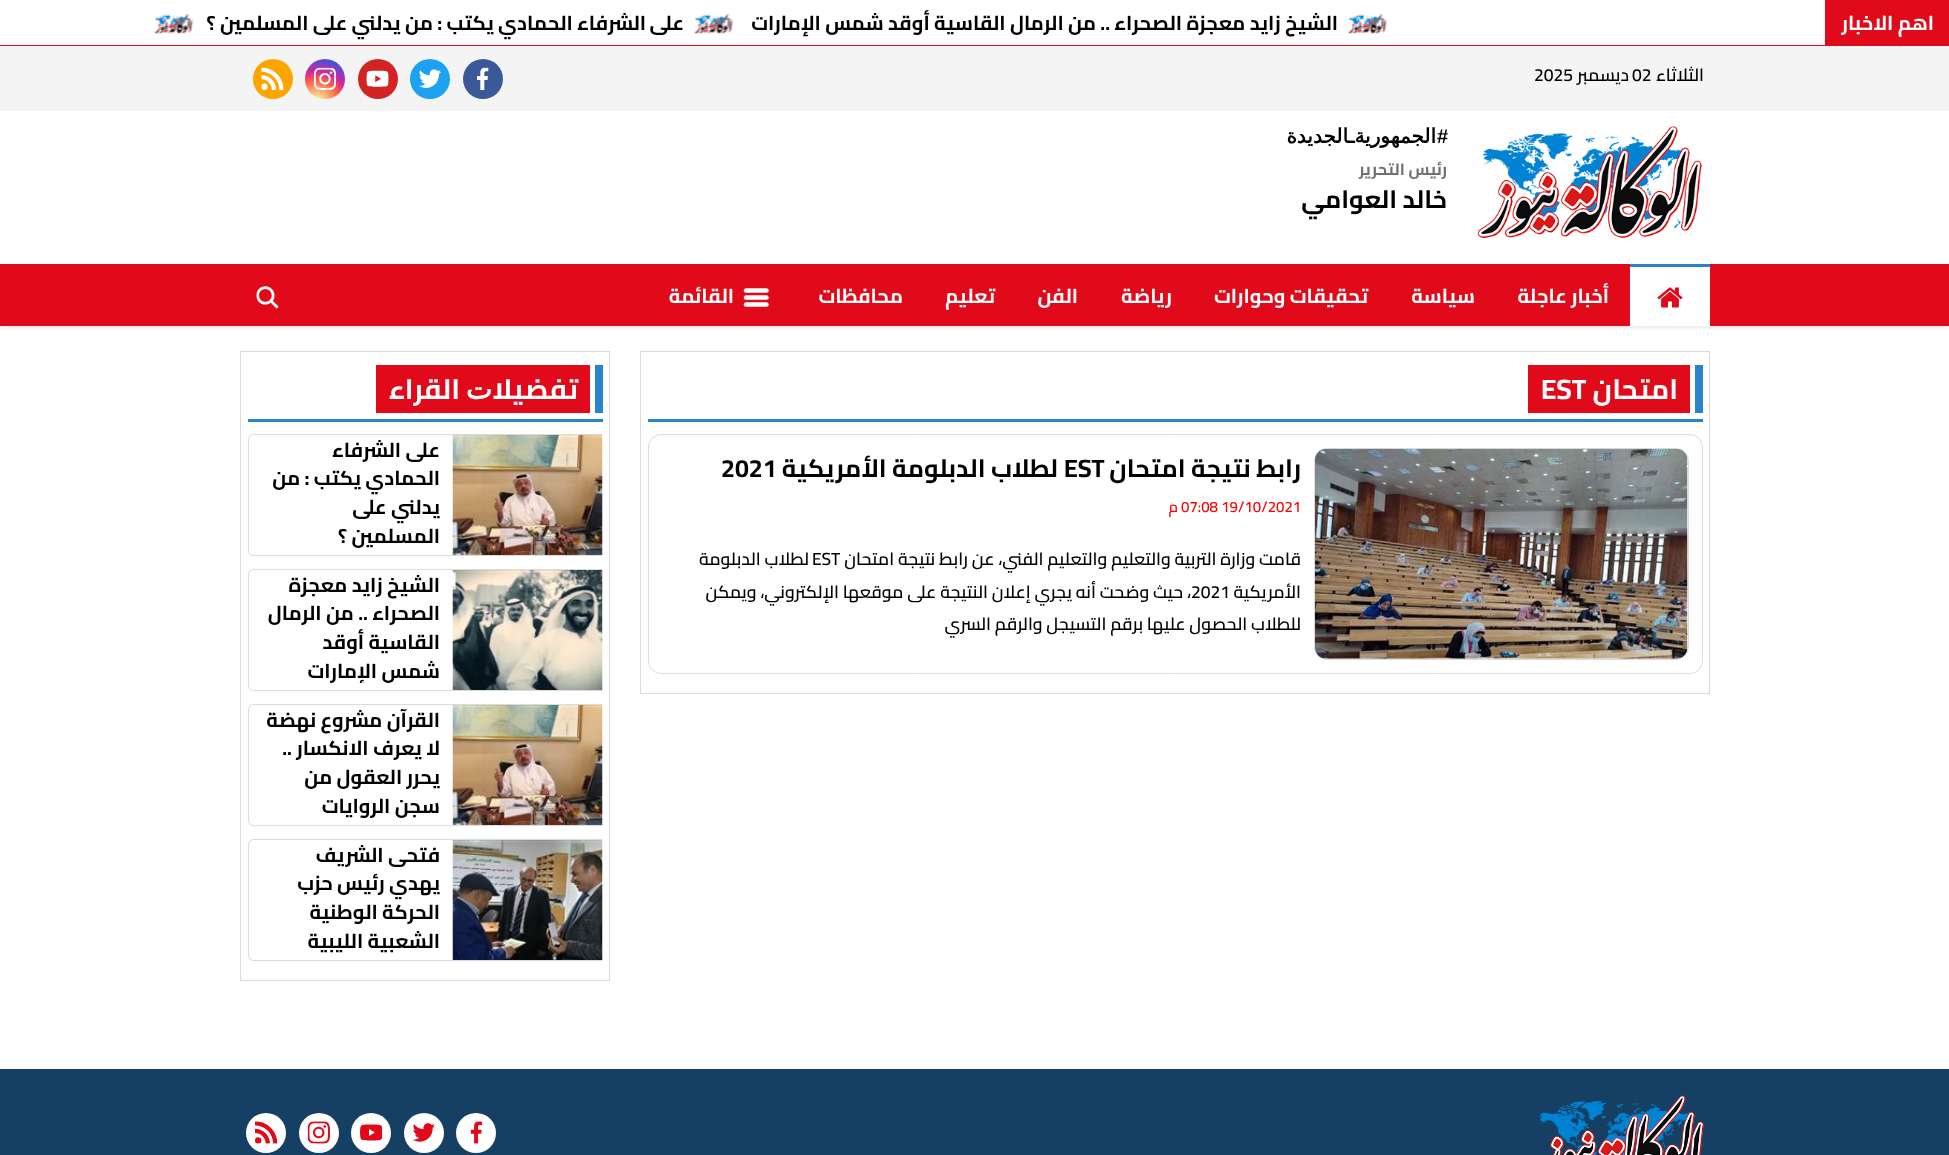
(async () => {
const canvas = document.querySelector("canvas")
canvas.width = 1949
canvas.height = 1155
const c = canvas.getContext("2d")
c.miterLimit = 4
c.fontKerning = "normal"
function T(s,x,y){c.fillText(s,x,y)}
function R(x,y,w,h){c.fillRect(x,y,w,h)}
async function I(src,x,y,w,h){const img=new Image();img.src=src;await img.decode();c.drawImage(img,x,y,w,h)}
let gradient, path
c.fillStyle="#fff"
R(0,0,1949,1155)
c.save()
c.beginPath()
c.rect(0,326,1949,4)
c.clip()
c.fillStyle="#00000012"
c.filter="blur(2.5px)"
c.beginPath()
c.rect(0,49,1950,280)
c.fill()
c.filter="none"
c.restore()
c.fillStyle="#e10a1a"
R(0,45,1949,1)
R(1825,0,124,45)
c.direction="rtl"
c.font="bold 20px Cairo"
c.fillStyle="#fff"
T("اهم الاخبار",1934,30)
await I("1.png",1348,13,40,21)
c.fillStyle="#000"
T("الشيخ زايد معجزة الصحراء .. من الرمال القاسية أوقد شمس الإمارات",1338,30)
await I("2.png",694,13,40,21)
T("على",684,30)
T("الشرفاء الحمادي يكتب : من يدلني على المسلمين ؟",646,30)
await I("3.png",154,13,40,21)
c.fillStyle="#f4f4f4"
R(0,46,1949,65)
c.font="600 17.5px Cairo"
c.fillStyle="#000"
T("الثلاثاء",1704,81)
c.direction="ltr"
T("02",1632,81)
c.direction="rtl"
T("ديسمبر",1629,81)
c.direction="ltr"
T("2025",1534,81)
c.fillStyle="#3b5998"
c.beginPath()
c.arc(483,79,20,0,7)
c.fill()
await I("4.png",477,67,12,23)
c.fillStyle="#1da1f2"
c.beginPath()
c.arc(430,79,20,0,7)
c.fill()
await I("5.png",419,69,22,19)
c.fillStyle="#d32323"
c.beginPath()
c.arc(378,79,20,0,7)
c.fill()
await I("6.png",366,70,23,17)
gradient = c.createRadialGradient(317,102,0,317,102,51)
gradient.addColorStop(0,"#fdf497")
gradient.addColorStop(.05,"#fdf497")
gradient.addColorStop(.45,"#fd5949")
gradient.addColorStop(.6,"#d6249f")
gradient.addColorStop(.9,"#285aeb")
c.fillStyle = gradient
c.beginPath()
c.arc(325,79,20,0,7)
c.fill()
await I("7.png",314,67,22,23)
c.fillStyle="#ffa500"
c.beginPath()
c.arc(273,79,20,0,7)
c.fill()
await I("8.png",261,67,23,23)
await I("9.png",1477,126,225,112)
c.direction="rtl"
c.font="bold 20px Liberation Sans"
c.fillStyle="#000"
T("#",1448,143)
c.font="bold 20px DejaVu Sans"
T("الجمهوريةـالجديدة",1436,143)
c.font="bold 16.25px Cairo"
c.fillStyle="#707070"
T("رئيس التحرير",1447,175)
c.font="bold 25px Cairo"
c.fillStyle="#000"
T("خالد العوامي",1447,208)
c.fillStyle="#e10a1a"
R(0,264,1949,62)
c.fillStyle="#fff"
R(1630,267,80,59)
c.fillStyle="#2984cb"
R(1630,264,80,3)
await I("10.png",1657,287,26,21)
c.font="bold 20px Cairo"
c.fillStyle="#fff"
T("أخبار عاجلة",1609,303)
T("سياسة",1475,303)
T("تحقيقات وحوارات",1368,303)
T("رياضة",1172,303)
T("الفن",1078,303)
T("تعليم",995,303)
T("محافظات",903,303)
await I("11.png",743,288,26,19)
T("القائمة",734,303)
await I("12.png",256,286,23,23)
c.strokeStyle="#dcdcdc"
c.strokeRect(640.5,351.5,1069,342)
c.fillStyle="#2984cb"
R(648,419,1055,3)
R(1695,365,8,48)
c.fillStyle="#e10a1a"
R(1528,365,162,48)
c.font="bold 28px Cairo"
c.fillStyle="#fff"
T("امتحان",1678,399)
c.direction="ltr"
T("EST",1541,399)
c.beginPath()
c.roundRect(648.5,434.5,1054,239,12.5)
c.stroke()
c.beginPath()
c.roundRect(1314.5,448.5,374,211,12.5)
c.stroke()
await I("13.png",1315,448,373,211)
c.direction="rtl"
c.font="bold 25px Cairo"
c.fillStyle="#000"
T("رابط نتيجة امتحان",1301,477)
c.direction="ltr"
T("EST",1064,477)
c.direction="rtl"
T("لطلاب الدبلومة الأمريكية",1058,477)
c.direction="ltr"
T("2021",721,477)
c.font="600 15px Cairo"
c.fillStyle="#f00"
T("07:08 19/10/2021",1181,512)
c.direction="rtl"
T("م",1178,512)
c.font="600 17.5px Cairo"
c.fillStyle="#000"
T("قامت وزارة التربية والتعليم والتعليم الفني، عن رابط نتيجة امتحان",1301,565)
c.direction="ltr"
T("EST",812,565)
c.direction="rtl"
T("لطلاب الدبلومة",809,565)
T("الأمريكية",1301,598)
c.direction="ltr"
T("2021",1191,598)
c.direction="rtl"
T("، حيث وضحت أنه يجري إعلان النتيجة على موقعها الإلكتروني، ويمكن",1191,598)
T("للطلاب الحصول عليها برقم التسيجل والرقم السري",1301,630)
c.strokeRect(240.5,351.5,369,629)
c.fillStyle="#2984cb"
R(248,419,355,3)
R(595,365,8,48)
c.fillStyle="#e10a1a"
R(376,365,214,48)
c.font="bold 28px Cairo"
c.fillStyle="#fff"
T("ﺗﻔﻀﻴﻼ",578,399)
c.font="bold 28px DejaVu Sans"
T("ﺕ",492,399)
c.font="bold 28px Cairo"
T("اﻟﻘﺮاء",460,399)
c.fillStyle="#dcdcdc"
path = new Path2D("M254 434h348v122h-348c-4 0-6-3-6-6v-110c0-3 2-6 6-6zm0 1h348v120h-348c-3 0-5-2-5-5v-110c0-3 2-5 5-5z")
c.fill(path,"evenodd")
await I("14.png",452,435,151,120)
c.font="bold 20px Cairo"
c.fillStyle="#000"
T("على",440,457)
T("الشرفاء",401,457)
T("الحمادي يكتب : من",440,485)
T("يدلني على",440,514)
T("المسلمين ؟",440,543)
c.fillStyle="#dcdcdc"
path = new Path2D("M254 569h348v122h-348c-4 0-6-3-6-6v-110c0-3 2-6 6-6zm0 1h348v120h-348c-3 0-5-2-5-5v-110c0-3 2-5 5-5z")
c.fill(path,"evenodd")
await I("15.png",452,570,151,120)
c.fillStyle="#000"
T("الشيخ زايد معجزة",440,592)
T("الصحراء .. من الرمال",440,620)
T("القاسية أوقد",440,649)
c.save()
c.beginPath()
c.rect(261,570,179,113)
c.clip()
T("شمس الإمارات",440,678)
c.restore()
c.fillStyle="#dcdcdc"
path = new Path2D("M254 704h348v122h-348c-4 0-6-3-6-6v-110c0-3 2-6 6-6zm0 1h348v120h-348c-3 0-5-2-5-5v-110c0-3 2-5 5-5z")
c.fill(path,"evenodd")
await I("14.png",452,705,151,120)
c.fillStyle="#000"
T("القرآن مشروع نهضة",440,727)
T("لا يعرف الانكسار ..",440,755)
T("يحرر العقول من",440,784)
T("سجن الروايات",440,813)
c.fillStyle="#dcdcdc"
path = new Path2D("M254 839h348v122h-348c-4 0-6-3-6-6v-110c0-3 2-6 6-6zm0 1h348v120h-348c-3 0-5-2-5-5v-110c0-3 2-5 5-5z")
c.fill(path,"evenodd")
await I("16.png",452,840,151,120)
c.fillStyle="#000"
T("فتحى الشريف",440,862)
T("يهدي رئيس حزب",440,890)
T("الحركة الوطنية",440,919)
T("الشعبية الليبية",440,948)
c.fillStyle="#154064"
R(0,1069,1949,86)
await I("17.png",1539,1095,165,60)
c.fillStyle="#fff"
c.beginPath()
c.arc(476,1133,20,0,7)
c.fill()
await I("18.png",470,1121,13,23)
c.beginPath()
c.arc(424,1133,20,0,7)
c.fill()
await I("19.png",413,1123,22,19)
c.beginPath()
c.arc(371,1133,20,0,7)
c.fill()
await I("20.png",360,1124,23,17)
c.beginPath()
c.arc(319,1133,20,0,7)
c.fill()
await I("21.png",307,1121,23,23)
c.beginPath()
c.arc(266,1133,20,0,7)
c.fill()
await I("22.png",255,1121,23,23)
})()
